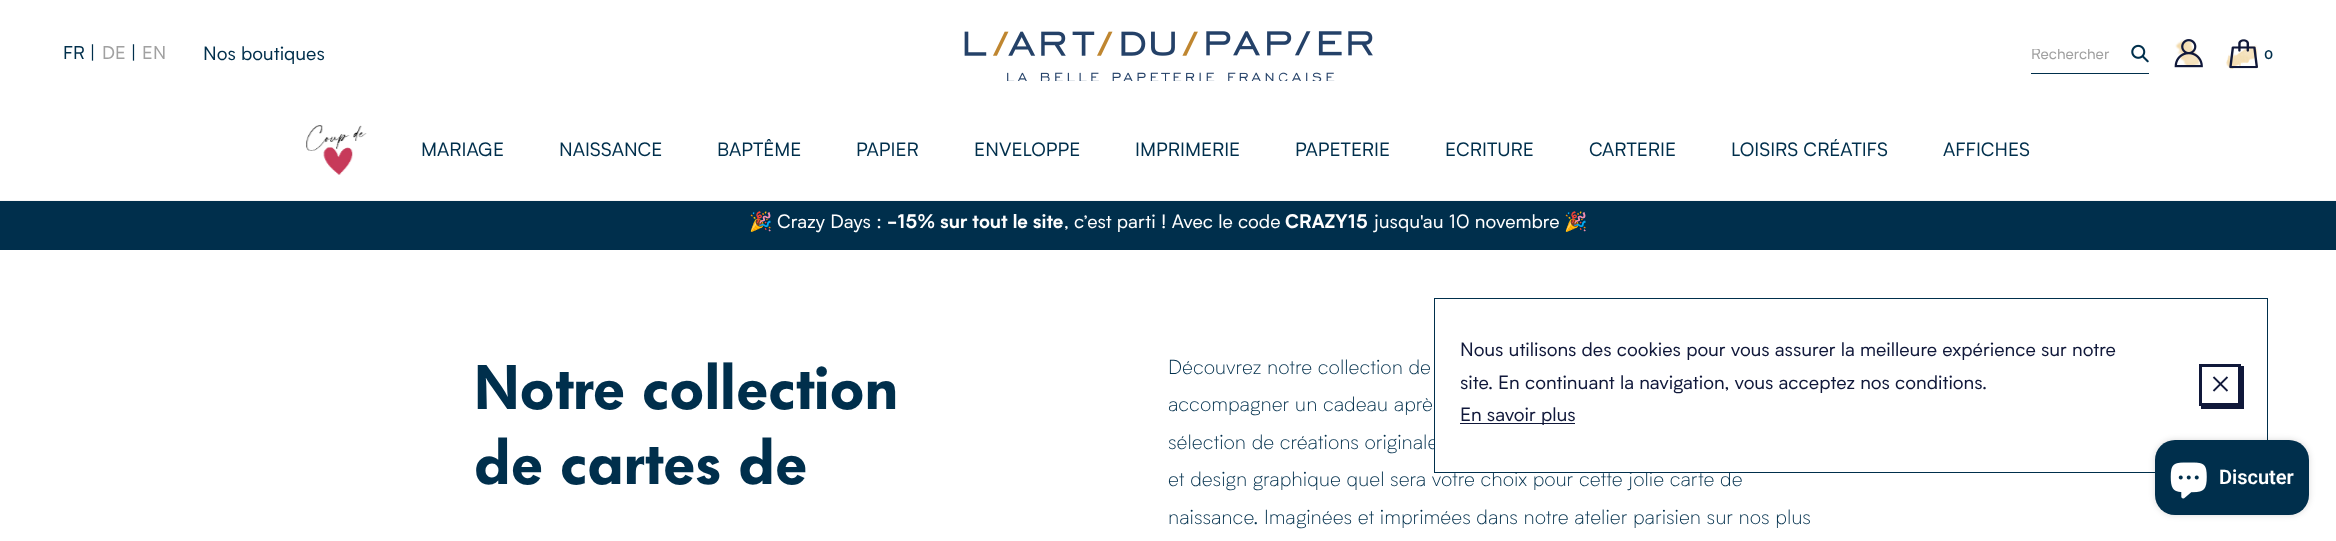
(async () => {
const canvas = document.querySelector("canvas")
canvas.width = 2336
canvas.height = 541
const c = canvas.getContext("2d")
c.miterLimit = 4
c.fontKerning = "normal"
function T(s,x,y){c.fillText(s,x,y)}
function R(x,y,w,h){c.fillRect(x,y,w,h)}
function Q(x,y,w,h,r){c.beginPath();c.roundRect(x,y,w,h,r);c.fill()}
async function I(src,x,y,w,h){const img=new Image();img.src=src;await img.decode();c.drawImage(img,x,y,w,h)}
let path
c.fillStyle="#fff"
R(0,0,2336,541)
c.font="18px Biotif"
c.fillStyle="#002f4c"
T("FR",63,59)
c.font="18.75px Biotif"
T("|",91,59)
c.font="18px Biotif"
c.fillStyle="#a1a1a1"
T("DE",102,59)
c.font="18.75px Biotif"
c.fillStyle="#002f4c"
T("|",132,59)
c.font="18px Biotif"
c.fillStyle="#a1a1a1"
T("EN",142,59)
c.font="18.75px Biotif"
c.fillStyle="#002f4c"
T("Nos boutiques",203,60)
await I("1.png",964,31,409,50)
R(2031,73,118,1)
c.save()
c.beginPath()
c.rect(2031,49,100,15)
c.clip()
c.font="15px Biotif"
c.fillStyle="#a1a1a1"
T("Rechercher",2031,59)
c.restore()
await I("2.png",2131,44,18,19)
await I("4.png",2175,39,26,26)
await I("3.png",2174,39,29,29)
await I("6.png",2226,45,32,25)
await I("5.png",2229,39,29,30)
c.font="bold 12px Biotif"
T("0",2264,59)
c.fillStyle="#f6f6f6"
R(0,200,2336,1)
await I("7.png",306,125,61,50)
c.font="18.75px Biotif"
c.fillStyle="#002f4c"
T("MARIAGE",421,156)
T("NAISSANCE",559,156)
T("BAPTÊME",717,156)
T("PAPIER",856,156)
T("ENVELOPPE",974,156)
T("IMPRIMERIE",1135,156)
T("PAPETERIE",1295,156)
T("ECRITURE",1445,156)
T("CARTERIE",1589,156)
T("LOISIRS CRÉATIFS",1731,156)
T("AFFICHES",1943,156)
R(0,201,2336,49)
c.font="18.75px Noto Color Emoji"
c.fillStyle="#fff"
T("🎉",749,228)
c.font="18.75px Biotif"
T("Crazy Days :",777,228)
c.font="bold 18.75px Biotif"
T("-15% sur tout le site",887,228)
c.font="18.75px Biotif"
T(", c’est parti ! Avec le code",1064,228)
c.font="bold 18.75px Biotif"
T("CRAZY15",1285,228)
c.font="18.75px Biotif"
T("jusqu'au 10 novembre",1374,228)
c.font="18.75px Noto Color Emoji"
T("🎉",1564,228)
c.font="600 62.5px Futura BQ"
c.fillStyle="#002f4c"
T("Notre collection",474,409)
T("de cartes de",474,484)
c.font="300 20px Biotif"
T("Découvrez notre collection de",1168,374)
T("accompagner un cadeau aprè",1168,411)
T("sélection de créations originale",1168,449)
T("et design graphique quel sera votre choix pour cette jolie carte de",1168,486)
T("naissance. Imaginées et imprimées dans notre atelier parisien sur nos plus",1168,524)
c.fillStyle="#fff"
R(1435,439,296,33)
c.strokeStyle="#002f4c"
c.strokeRect(1434.5,298.5,833,174)
c.font="18.75px Biotif"
c.fillStyle="#10183a"
T("Nous utilisons des cookies pour vous assurer la meilleure expérience sur notre",1460,356)
T("site. En continuant la navigation, vous acceptez nos conditions.",1460,389)
R(1460,423,115,1)
T("En savoir plus",1460,421)
path = new Path2D("M2201 406v3h43v-43h-3v40z")
c.fill(path)
c.strokeStyle="#10183a"
c.lineWidth=3
c.strokeRect(2200.5,365.5,39,39)
await I("8.png",2212,376,16,16)
c.fillStyle="#00000026"
c.filter="blur(3px)"
c.beginPath()
c.roundRect(2155,440,154,75,20)
c.fill()
c.filter="none"
c.fillStyle="#002f4c"
Q(2155,440,154,75,20)
await I("9.png",2170,462,37,37)
c.font="600 20px Roboto"
c.fillStyle="#fff"
T("Discuter",2219,484)
})()
